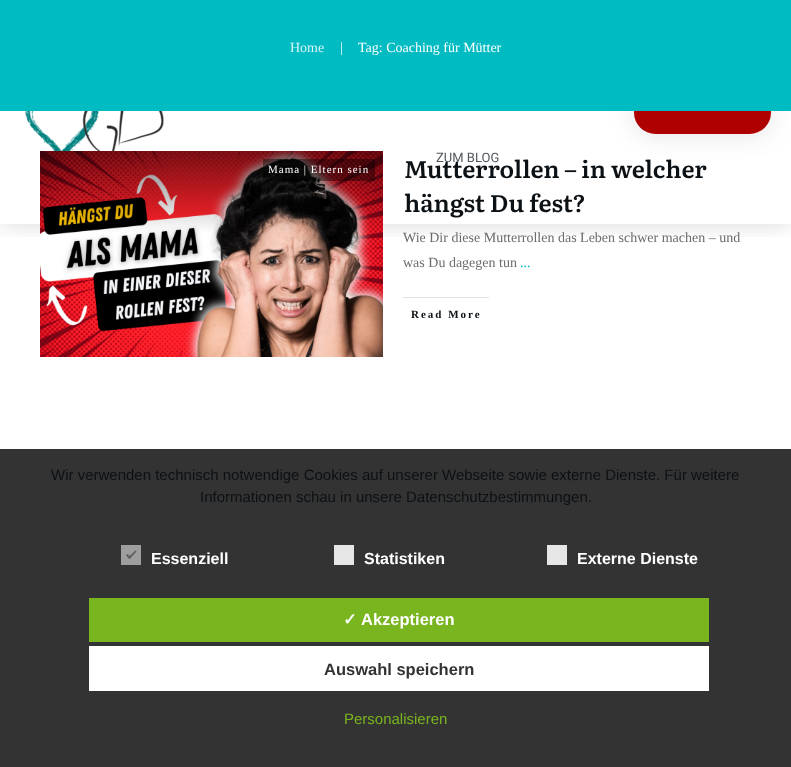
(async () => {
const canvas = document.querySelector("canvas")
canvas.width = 791
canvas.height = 767
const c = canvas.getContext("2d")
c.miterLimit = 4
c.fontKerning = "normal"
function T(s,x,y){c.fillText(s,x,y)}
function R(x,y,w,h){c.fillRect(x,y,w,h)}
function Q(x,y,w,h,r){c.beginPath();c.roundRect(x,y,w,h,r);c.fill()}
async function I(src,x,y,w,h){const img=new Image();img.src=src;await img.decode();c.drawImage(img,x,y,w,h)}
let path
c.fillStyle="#fff"
R(0,0,791,767)
c.save()
c.beginPath()
c.rect(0,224,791,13)
c.clip()
c.fillStyle="#00000026"
c.filter="blur(12px)"
c.beginPath()
c.rect(0,0,791,224)
c.fill()
c.filter="none"
c.restore()
c.fillStyle="#0000001f"
c.filter="blur(13.5px)"
c.beginPath()
c.roundRect(634,91,137,43,21.5)
c.fill()
c.filter="none"
c.fillStyle="#ae0000"
Q(634,91,137,43,21.5)
c.fillStyle="#00bbc2"
R(0,0,791,111)
c.font="14px Liberation Serif"
c.fillStyle="#d9f5f6"
T("Home",290,52)
c.fillStyle="#fff"
T("|",340,52)
T("Tag: Coaching für Mütter",358,52)
await I("2.png",25,111,139,54)
await I("1.png",40,151,343,206)
c.fillStyle="#00000066"
R(263,159,112,22)
c.letterSpacing="1px"
c.font="11px Liberation Serif"
c.fillStyle="#fff"
T("Mama | Eltern sein",268,173)
c.letterSpacing="0px"
c.font="600 24px Literata"
c.fillStyle="#0c1115"
T("Mutterrollen – in welcher",404,178)
T("hängst Du fest?",404,212)
c.font="14px Liberation Serif"
c.fillStyle="#6a6b6c"
T("Wie Dir diese Mutterrollen das Leben schwer machen – und",403,242)
T("was Du dagegen tun",403,267)
c.fillStyle="#00bbc2"
T("...",520,267)
c.fillStyle="#e0e0e0"
R(403,297,86,1)
c.letterSpacing="2px"
c.font="bold 11px Liberation Serif"
c.fillStyle="#0c1115"
T("Read More",411,318)
c.letterSpacing="0px"
c.font="13px Roboto"
c.fillStyle="#54595f"
T("ZUM BLOG",436,162)
c.fillStyle="#333"
R(0,449,791,318)
c.font="15px Liberation Sans"
c.fillStyle="#0c1115"
T("Wir verwenden technisch notwendige Cookies auf unserer Webseite sowie externe Dienste. Für weitere",51,480)
T("Informationen schau in unsere Datenschutzbestimmungen.",200,502)
c.fillStyle="#9e9e9e"
R(121,545,20,20)
c.fillStyle="#5e5e5e"
path = new Path2D("M135.5 550.5l1 1l-7 7.5l-1.5-1.5z")
c.fill(path)
path = new Path2D("M127.5 554l3.5 3.5l-1.5 1.5l-3.5-3.5z")
c.fill(path)
c.font="bold 16px Liberation Sans"
c.fillStyle="#fff"
T("Essenziell",151,564)
c.fillStyle="#e6e6e6"
R(334,545,20,20)
c.fillStyle="#fff"
T("Statistiken",364,564)
c.fillStyle="#e6e6e6"
R(547,545,20,20)
c.fillStyle="#fff"
T("Externe Dienste",577,564)
c.fillStyle="#79b51f"
R(89,598,620,44)
c.font="bold 16.5px DejaVu Sans"
c.fillStyle="#fff"
T("✓",343,625)
c.font="bold 16.5px Liberation Sans"
T("Akzeptieren",361,625)
R(89,646,620,45)
c.fillStyle="#333"
T("Auswahl speichern",324,675)
c.font="15px Liberation Sans"
c.fillStyle="#79b51f"
T("Personalisieren",344,724)
})()
